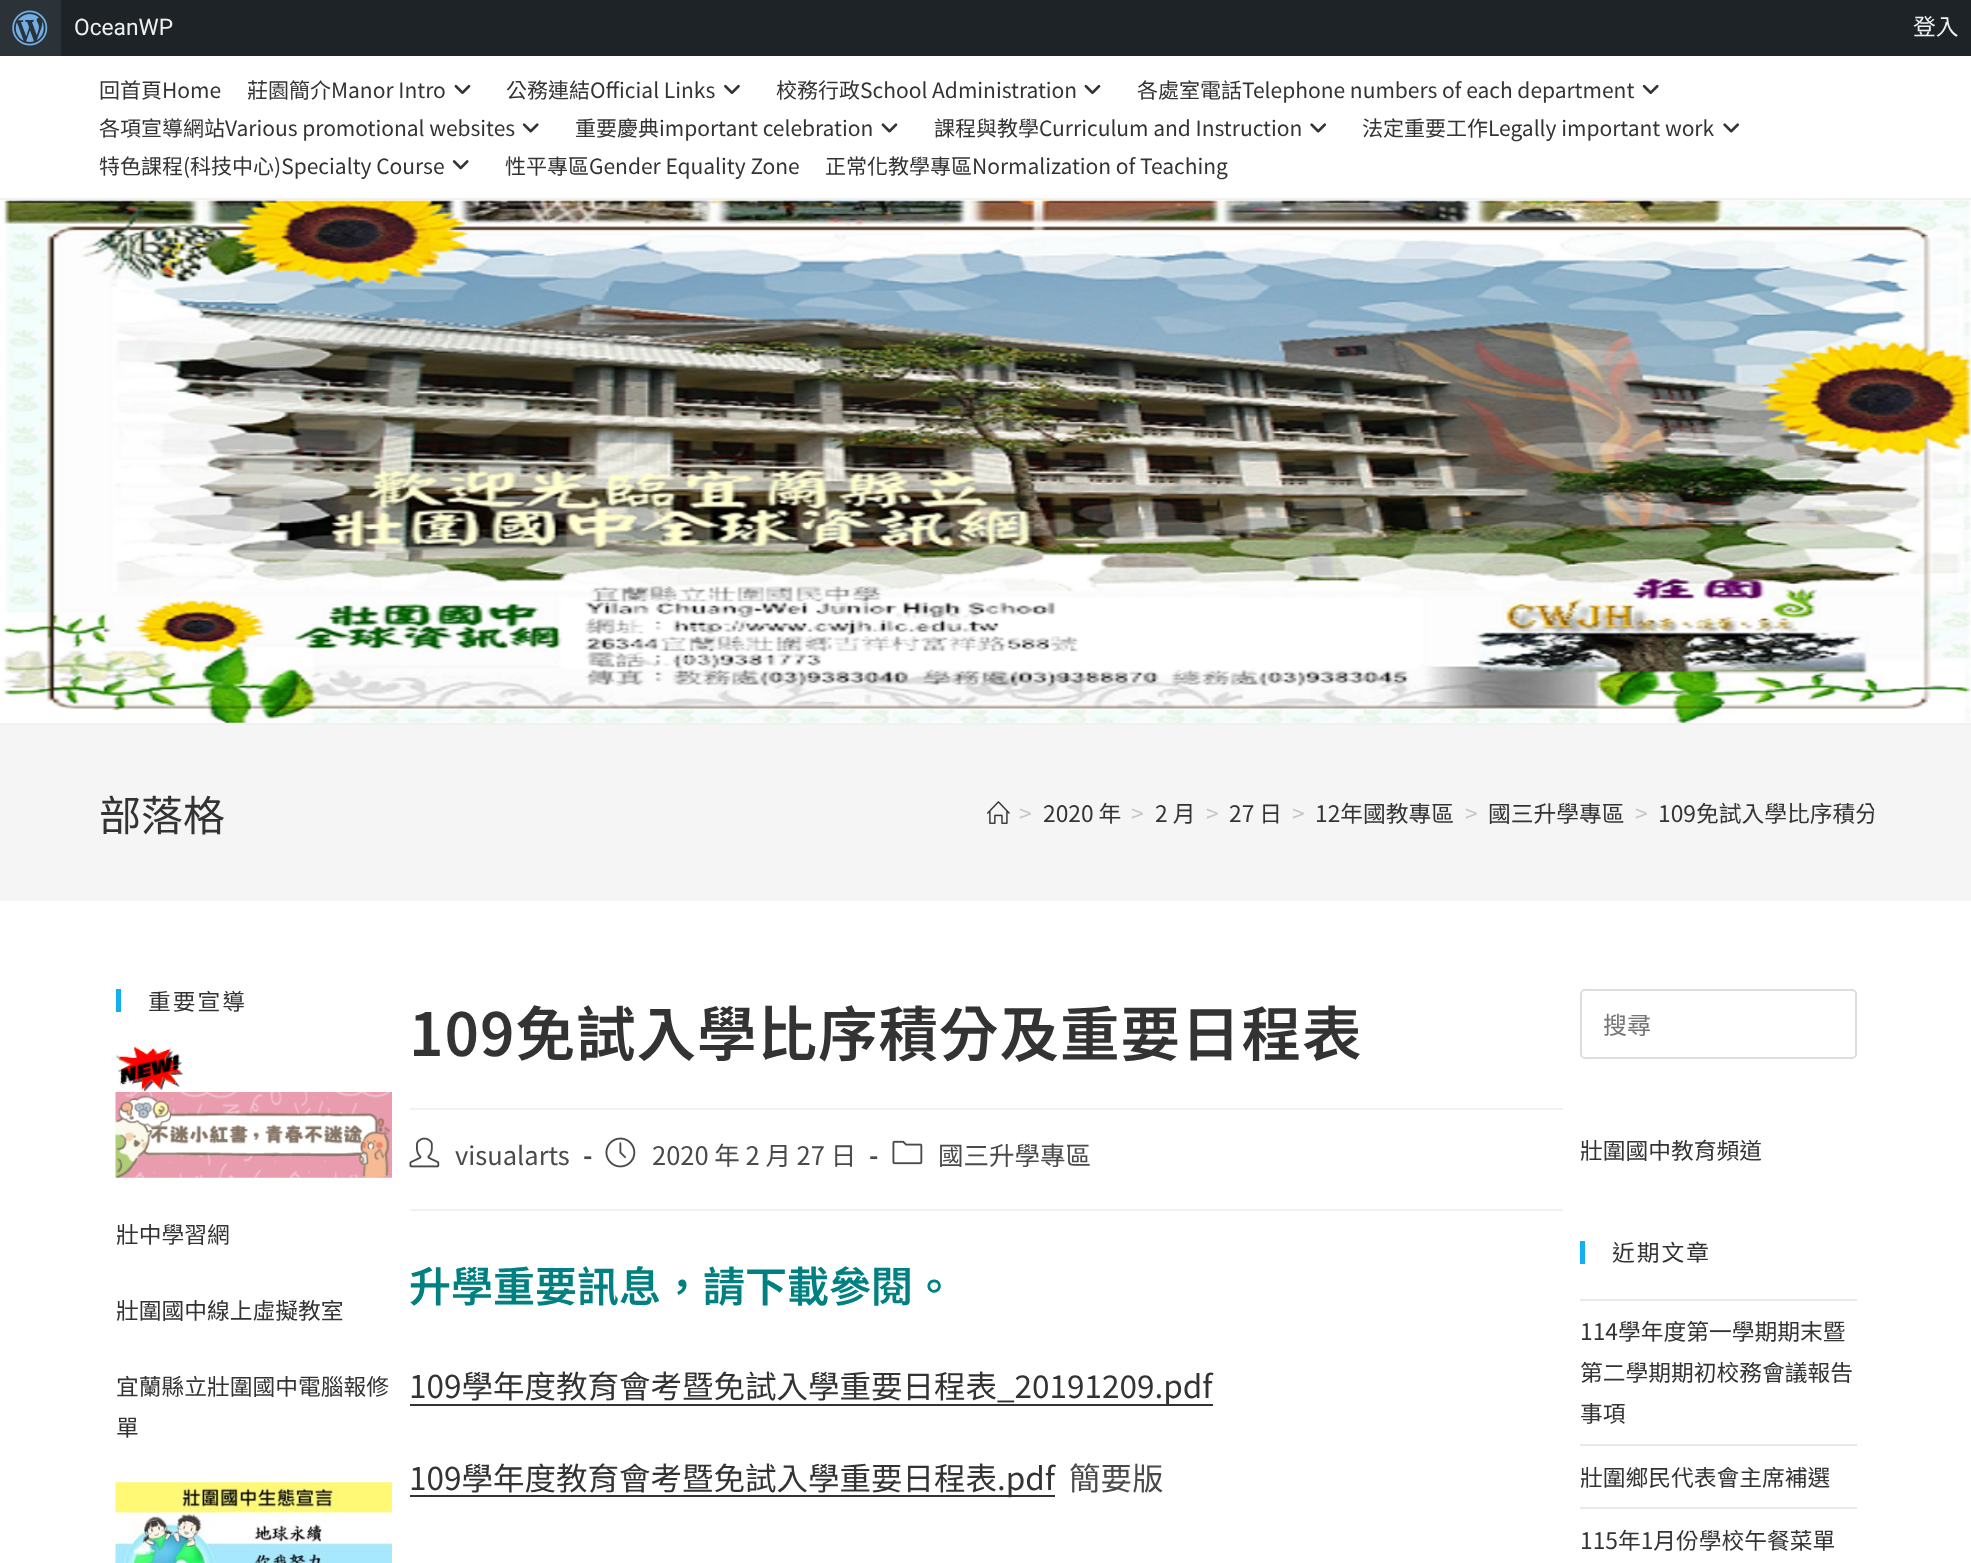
(async () => {
const canvas = document.querySelector("canvas")
canvas.width = 1971
canvas.height = 1563
const c = canvas.getContext("2d")
c.miterLimit = 4
c.fontKerning = "normal"
function T(s,x,y){c.fillText(s,x,y)}
function R(x,y,w,h){c.fillRect(x,y,w,h)}
async function I(src,x,y,w,h){const img=new Image();img.src=src;await img.decode();c.drawImage(img,x,y,w,h)}
c.fillStyle="#fff"
R(0,0,1971,1563)
c.fillStyle="#1d2327"
R(61,0,1910,56)
c.fillStyle="#2c3338"
R(0,0,61,56)
await I("1.png",12,10,36,36)
c.font="22.75px Roboto"
c.fillStyle="#f0f0f1"
T("OceanWP",74,35)
c.font="22.75px Noto Sans CJK TC"
T("登入",1913,35)
c.fillStyle="#f1f1f1"
R(0,198,1971,2)
c.font="21px Noto Sans TC"
c.fillStyle="#333"
T("回首頁Home",99,98)
T("莊園簡介Manor Intro",247,98)
await I("2.png",454,84,17,10)
T("公務連結Official Links",506,98)
await I("3.png",724,84,16,10)
T("校務行政School Administration",776,98)
await I("2.png",1084,84,17,10)
T("各處室電話Telephone numbers of each department",1137,98)
await I("4.png",1642,84,17,10)
T("各項宣導網站Various promotional websites",99,136)
await I("5.png",522,123,17,10)
T("重要慶典important celebration",575,136)
await I("6.png",881,123,17,10)
T("課程與教學Curriculum and Instruction",934,136)
await I("7.png",1310,123,16,10)
T("法定重要工作Legally important work",1362,136)
await I("7.png",1723,123,16,10)
T("特色課程(科技中心)Specialty Course",99,174)
await I("8.png",452,160,17,10)
T("性平專區Gender Equality Zone",505,174)
T("正常化教學專區Normalization of Teaching",825,174)
await I("9.png",2,200,1969,523)
c.fillStyle="#f1f1f1"
R(0,723,1971,2)
c.fillStyle="#f5f5f5"
R(0,725,1971,176)
c.font="42px Noto Sans TC"
c.fillStyle="#333"
T("部落格",99,831)
await I("10.png",987,801,23,23)
c.font="22.75px Noto Sans TC"
c.fillStyle="#c6c6c6"
T(">",1019,822)
c.fillStyle="#333"
T("2020 年",1043,822)
c.fillStyle="#c6c6c6"
T(">",1131,822)
c.fillStyle="#333"
T("2 月",1155,822)
c.fillStyle="#c6c6c6"
T(">",1206,822)
c.fillStyle="#333"
T("27 日",1229,822)
c.fillStyle="#c6c6c6"
T(">",1292,822)
c.fillStyle="#333"
T("12年國教專區",1315,822)
c.fillStyle="#c6c6c6"
T(">",1465,822)
c.fillStyle="#333"
T("國三升學專區",1488,822)
c.fillStyle="#c6c6c6"
T(">",1635,822)
c.save()
c.beginPath()
c.rect(987,786,887,56)
c.clip()
c.fillStyle="#333"
T("109免試入學比序積分",1658,822)
c.restore()
c.fillStyle="#13aff0"
R(116,989,5,23)
c.letterSpacing="2px"
c.fillStyle="#333"
T("重要宣導",148,1010)
await I("11.png",115,1046,69,46)
await I("12.png",115,1092,277,86)
c.letterSpacing="0px"
T("壯中學習網",116,1243)
T("壯圍國中線上虛擬教室",116,1319)
T("宜蘭縣立壯圍國中電腦報修",116,1395)
T("單",116,1436)
await I("13.png",115,1482,277,81)
c.fillStyle="#f1f1f1"
R(410,1108,1153,2)
c.letterSpacing="1px"
c.font="600 59.5px Noto Sans TC"
c.fillStyle="#333"
T("109免試入學比序積分及重要日程表",409,1056)
c.fillStyle="#f1f1f1"
R(410,1209,1153,2)
await I("14.png",409,1137,31,31)
c.letterSpacing="0px"
c.font="25.5px Noto Sans TC"
c.fillStyle="#4a4a4a"
T("visualarts",455,1165)
c.font="bold 25.5px Noto Sans TC"
T("-",583,1165)
await I("15.png",605,1137,31,31)
c.font="25.5px Noto Sans TC"
T("2020 年 2 月 27 日",652,1165)
c.font="bold 25.5px Noto Sans TC"
T("-",869,1165)
await I("16.png",892,1140,31,25)
c.font="25.5px Noto Sans TC"
T("國三升學專區",938,1165)
c.font="600 42px Noto Sans TC"
c.fillStyle="#008080"
T("升學重要訊息，請下載參閱。",409,1302)
c.fillStyle="#333"
R(410,1404,803,2)
c.font="31.5px Noto Sans TC"
T("109學年度教育會考暨免試入學重要日程表_20191209.pdf",409,1398)
R(410,1495,645,2)
T("109學年度教育會考暨免試入學重要日程表.pdf",409,1490)
c.fillStyle="#4a4a4a"
T("簡要版",1069,1490)
c.beginPath()
c.roundRect(1581,990,275,68,4)
c.strokeStyle="#ddd"
c.lineWidth=2
c.stroke()
c.font="24px Noto Sans TC"
c.fillStyle="#757575"
T("搜尋",1603,1034)
c.font="22.75px Noto Sans TC"
c.fillStyle="#333"
T("壯圍國中教育頻道",1580,1159)
c.fillStyle="#13aff0"
R(1580,1241,5,23)
c.letterSpacing="2px"
c.fillStyle="#333"
T("近期文章",1612,1261)
c.fillStyle="#e9e9e9"
R(1580,1299,277,2)
R(1580,1444,277,2)
c.letterSpacing="0px"
c.fillStyle="#333"
T("114學年度第一學期期末暨",1580,1340)
T("第二學期期初校務會議報告",1580,1381)
T("事項",1580,1422)
c.fillStyle="#e9e9e9"
R(1580,1507,277,2)
c.fillStyle="#333"
T("壯圍鄉民代表會主席補選",1580,1486)
T("115年1月份學校午餐菜單",1580,1549)
})()
